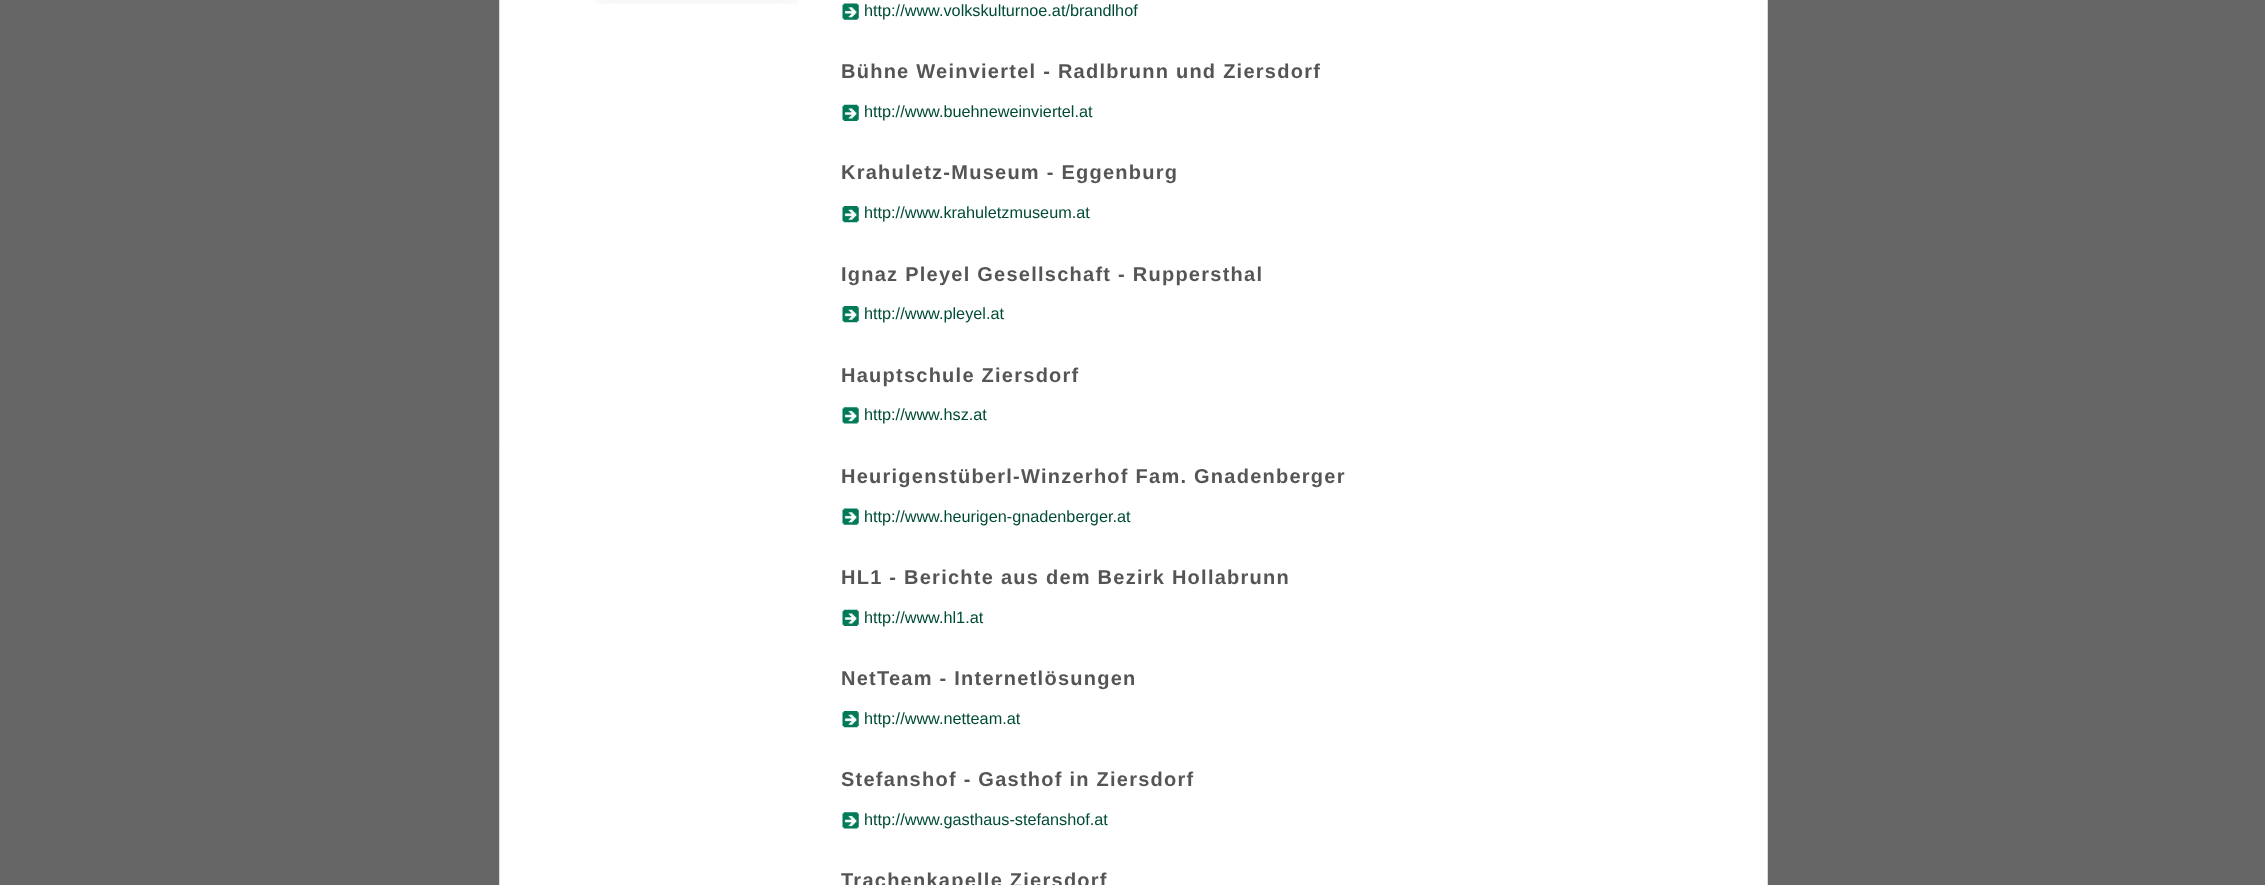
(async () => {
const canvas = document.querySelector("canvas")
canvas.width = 2265
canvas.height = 885
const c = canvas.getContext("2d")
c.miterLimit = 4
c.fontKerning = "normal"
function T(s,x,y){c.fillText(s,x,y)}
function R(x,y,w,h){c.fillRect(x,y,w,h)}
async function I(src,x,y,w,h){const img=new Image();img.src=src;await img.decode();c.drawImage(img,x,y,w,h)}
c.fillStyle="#666"
R(0,0,2265,885)
c.fillStyle="#fff"
c.beginPath()
c.rect(499.5,-.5,1268,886)
c.fill()
c.strokeStyle="#dcdcdc"
c.stroke()
await I("1.png",595,0,203,4)
await I("2.png",842,3,17,17)
c.font="16.25px Liberation Sans"
c.fillStyle="#004b36"
T("http://www.volkskulturnoe.at/brandlhof",864,16)
c.letterSpacing="1.25px"
c.font="bold 20px Liberation Sans"
c.fillStyle="#555"
T("Bühne Weinviertel - Radlbrunn und Ziersdorf",841,78)
await I("3.png",842,104,17,17)
c.letterSpacing="0px"
c.font="16.25px Liberation Sans"
c.fillStyle="#004b36"
T("http://www.buehneweinviertel.at",864,117)
c.letterSpacing="1.25px"
c.font="bold 20px Liberation Sans"
c.fillStyle="#555"
T("Krahuletz-Museum - Eggenburg",841,179)
await I("4.png",842,206,17,17)
c.letterSpacing="0px"
c.font="16.25px Liberation Sans"
c.fillStyle="#004b36"
T("http://www.krahuletzmuseum.at",864,218)
c.letterSpacing="1.25px"
c.font="bold 20px Liberation Sans"
c.fillStyle="#555"
T("Ignaz Pleyel Gesellschaft - Ruppersthal",841,281)
await I("4.png",842,306,17,17)
c.letterSpacing="0px"
c.font="16.25px Liberation Sans"
c.fillStyle="#004b36"
T("http://www.pleyel.at",864,319)
c.letterSpacing="1.25px"
c.font="bold 20px Liberation Sans"
c.fillStyle="#555"
T("Hauptschule Ziersdorf",841,382)
await I("5.png",842,407,17,17)
c.letterSpacing="0px"
c.font="16.25px Liberation Sans"
c.fillStyle="#004b36"
T("http://www.hsz.at",864,420)
c.letterSpacing="1.25px"
c.font="bold 20px Liberation Sans"
c.fillStyle="#555"
T("Heurigenstüberl-Winzerhof Fam. Gnadenberger",841,483)
await I("2.png",842,508,17,17)
c.letterSpacing="0px"
c.font="16.25px Liberation Sans"
c.fillStyle="#004b36"
T("http://www.heurigen-gnadenberger.at",864,522)
c.letterSpacing="1.25px"
c.font="bold 20px Liberation Sans"
c.fillStyle="#555"
T("HL1 - Berichte aus dem Bezirk Hollabrunn",841,584)
await I("3.png",842,609,17,17)
c.letterSpacing="0px"
c.font="16.25px Liberation Sans"
c.fillStyle="#004b36"
T("http://www.hl1.at",864,623)
c.letterSpacing="1.25px"
c.font="bold 20px Liberation Sans"
c.fillStyle="#555"
T("NetTeam - Internetlösungen",841,685)
await I("4.png",842,711,17,17)
c.letterSpacing="0px"
c.font="16.25px Liberation Sans"
c.fillStyle="#004b36"
T("http://www.netteam.at",864,724)
c.letterSpacing="1.25px"
c.font="bold 20px Liberation Sans"
c.fillStyle="#555"
T("Stefanshof - Gasthof in Ziersdorf",841,786)
await I("5.png",842,812,17,17)
c.letterSpacing="0px"
c.font="16.25px Liberation Sans"
c.fillStyle="#004b36"
T("http://www.gasthaus-stefanshof.at",864,825)
c.letterSpacing="1.25px"
c.font="bold 20px Liberation Sans"
c.fillStyle="#555"
T("Trachenkapelle Ziersdorf",841,887)
})()
